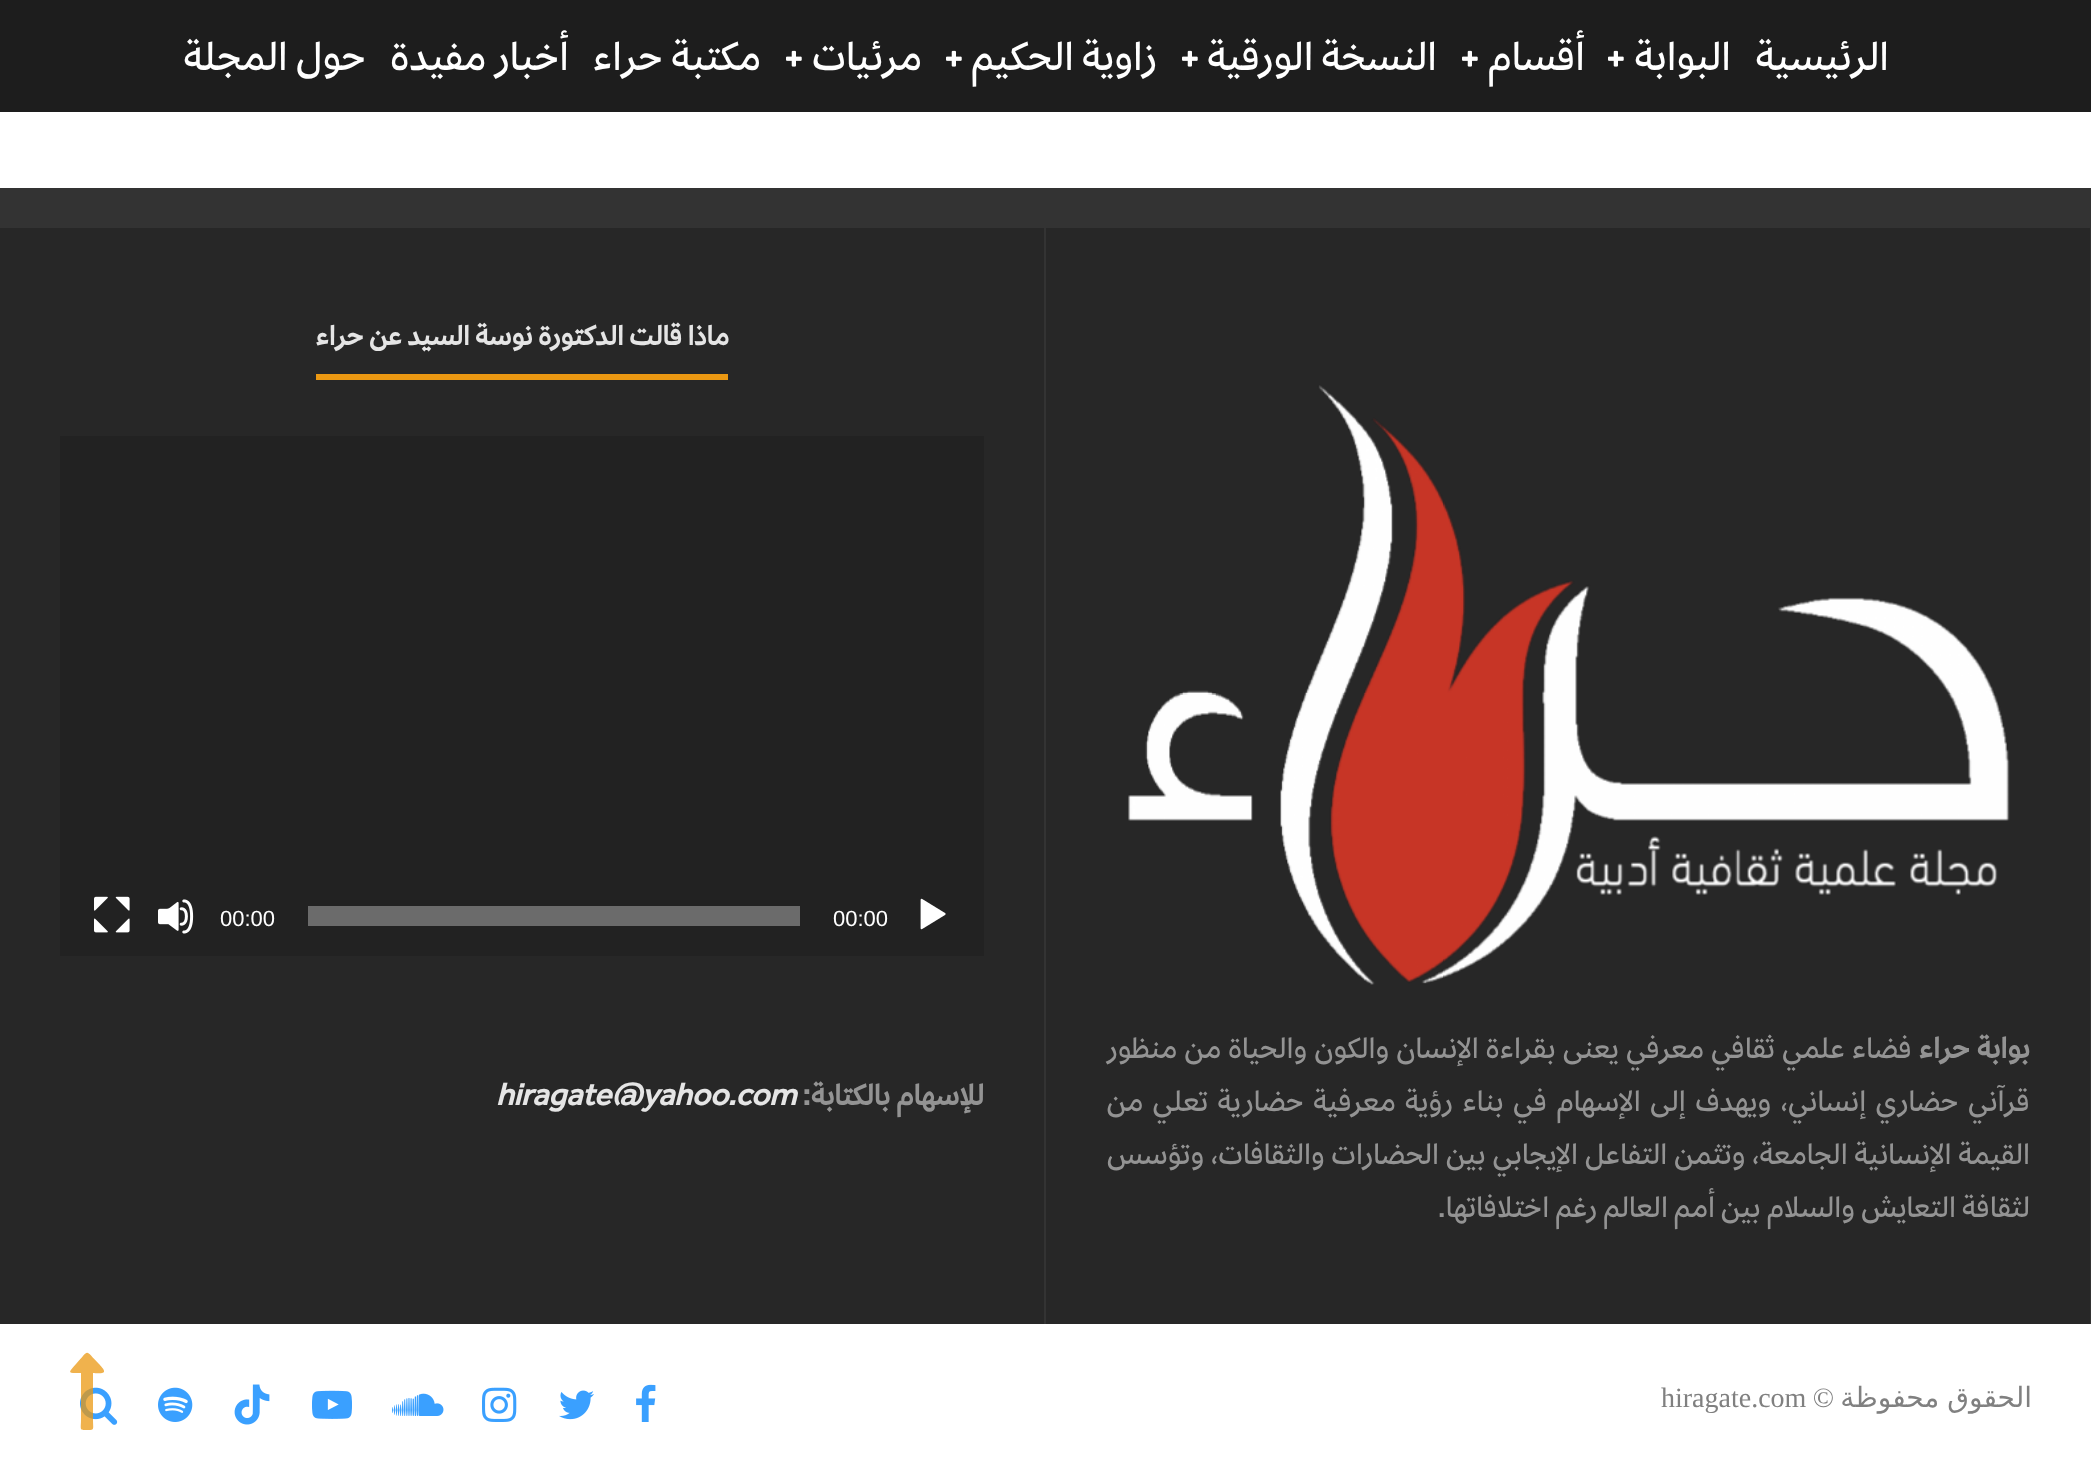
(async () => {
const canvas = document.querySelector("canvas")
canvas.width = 2091
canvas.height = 1484
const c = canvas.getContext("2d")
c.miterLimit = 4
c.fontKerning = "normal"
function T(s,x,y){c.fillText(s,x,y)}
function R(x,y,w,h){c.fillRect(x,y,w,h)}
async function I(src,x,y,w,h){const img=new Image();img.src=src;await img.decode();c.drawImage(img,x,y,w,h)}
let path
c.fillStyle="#fff"
R(0,0,2091,1484)
c.fillStyle="#1d1d1d"
R(0,0,2091,112)
c.direction="rtl"
c.font="500 44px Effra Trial"
c.fillStyle="#fff"
T("الرئيسية",1889,70)
T("البوابة",1731,70)
await I("1.png",1608,50,16,17)
T("أقسام",1585,70)
await I("1.png",1462,50,16,17)
T("النسخة الورقية",1437,70)
await I("1.png",1182,50,16,17)
T("زاوية الحكيم",1157,70)
await I("1.png",946,50,16,17)
T("مرئيات",922,70)
await I("1.png",786,50,16,17)
T("مكتبة حراء",761,70)
T("أخبار مفيدة",569,70)
T("حول المجلة",366,70)
c.fillStyle="#333"
R(0,188,2091,40)
c.fillStyle="#272727"
R(0,228,2090,1096)
c.fillStyle="#333"
R(2090,228,1,1096)
await I("2.png",1128,385,882,600)
c.wordSpacing="1.1px"
c.font="bold 32px Effra Trial"
c.fillStyle="#939393"
T("بوابة حراء",2030,1058)
c.font="500 32px Effra Trial"
T("فضاء علمي ثقافي معرفي يعنى بقراءة الإنسان والكون والحياة من منظور",1912,1058)
c.wordSpacing="3.4px"
T("قرآني حضاري إنساني، ويهدف إلى الإسهام في بناء رؤية معرفية حضارية تعلي من",2030,1111)
c.wordSpacing="0.75px"
T("القيمة الإنسانية الجامعة، وتثمن التفاعل الإيجابي بين الحضارات والثقافات، وتؤسس",2030,1164)
c.wordSpacing="0px"
T("لثقافة التعايش والسلام بين أمم العالم رغم اختلافاتها.",2030,1217)
c.fillStyle="#333"
R(1044,228,2,1096)
c.font="bold 30px Effra Trial"
c.fillStyle="#e5e5e5"
T("ماذا قالت الدكتورة نوسة السيد عن حراء",729,345)
c.fillStyle="#eb9812"
R(316,374,412,6)
c.fillStyle="#222"
R(60,436,924,520)
await I("3.png",920,898,26,32)
c.direction="ltr"
c.font="22px Liberation Sans"
c.fillStyle="#fff"
T("00:00",833,926)
c.fillStyle="#6b6b6b"
R(308,906,492,20)
c.fillStyle="#fff"
T("00:00",220,926)
await I("4.png",158,899,36,35)
await I("5.png",94,896,36,37)
c.direction="rtl"
c.font="bold 32px Effra Trial"
c.fillStyle="#939393"
T("للإسهام بالكتابة:",984,1105)
c.direction="ltr"
c.font="italic bold 32px Effra Trial"
c.fillStyle="#e5e5e5"
T("hiragate@yahoo.com",496,1105)
c.wordSpacing="-1px"
c.direction="rtl"
c.font="28px DejaVu Sans"
c.fillStyle="#808080"
T("الحقوق محفوظة",2032,1407)
c.wordSpacing="0px"
c.font="28px Liberation Serif"
T("©",1834,1407)
c.direction="ltr"
T("hiragate.com",1661,1407)
await I("6.png",636,1384,20,38)
await I("7.png",559,1390,35,30)
await I("8.png",482,1387,35,35)
await I("9.png",392,1393,52,23)
await I("10.png",312,1390,40,29)
await I("11.png",234,1384,36,41)
await I("12.png",158,1387,35,35)
await I("13.png",80,1387,38,38)
c.fillStyle="#eb9812bf"
path = new Path2D("M104 1372c-1 2-9 1-11 1v46c0 11 2 11-6 11c-8 0-6 0-6-11v-46c-13 0-14 1-5-9c14-15 8-15 23 0c1 1 6 6 5 8z")
c.fill(path)
})()
